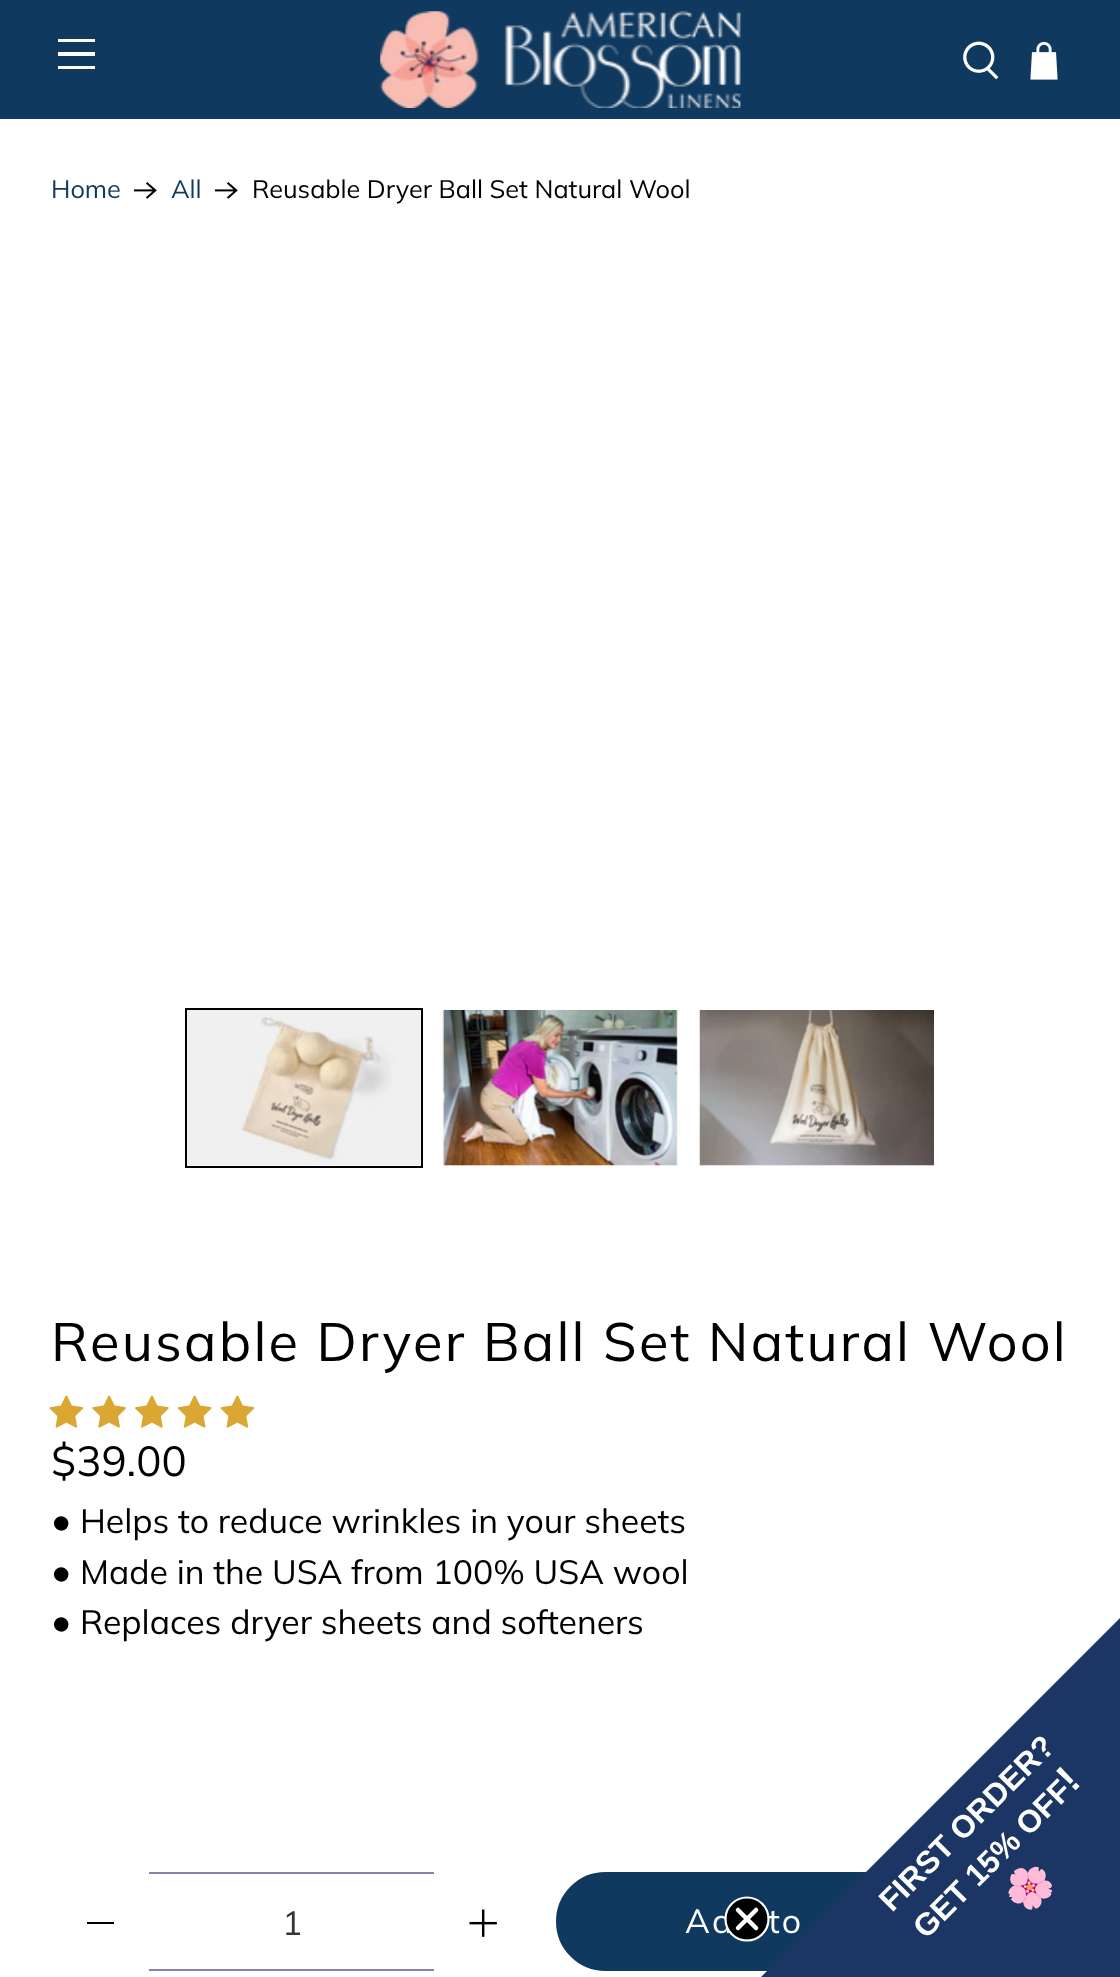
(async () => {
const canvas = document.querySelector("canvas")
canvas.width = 1120
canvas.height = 1977
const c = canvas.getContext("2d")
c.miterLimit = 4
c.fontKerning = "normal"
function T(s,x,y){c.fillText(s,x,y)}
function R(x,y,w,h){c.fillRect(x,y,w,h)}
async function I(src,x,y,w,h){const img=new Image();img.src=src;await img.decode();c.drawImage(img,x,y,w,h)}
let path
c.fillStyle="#fff"
R(0,0,1120,1977)
c.fillStyle="#0f395f"
R(0,0,1120,119)
c.fillStyle="#fff"
R(58,39,37,3)
R(58,52,37,4)
R(58,66,37,3)
await I("1.png",380,11,361,97)
await I("2.png",963,41,36,39)
await I("3.png",1030,41,28,39)
c.font="25.3px Muli"
c.fillStyle="#0f395f"
T("Home",51,198)
await I("4.png",134,182,23,17)
T("All",171,198)
await I("4.png",215,182,23,17)
c.fillStyle="#000"
T("Reusable Dryer Ball Set Natural Wool",252,198)
c.strokeStyle="#000"
c.lineWidth=2
c.strokeRect(186,1009,236,158)
await I("5.png",187,1010,234,156)
await I("6.png",442,1010,236,156)
await I("7.png",699,1010,235,156)
c.letterSpacing="2.25px"
c.font="54px Muli"
T("Reusable Dryer Ball Set Natural Wool",51,1361)
await I("8.png",49,1395,35,33)
await I("9.png",92,1395,34,33)
await I("10.png",135,1395,34,33)
await I("11.png",177,1395,35,33)
await I("8.png",220,1395,35,33)
c.letterSpacing="0px"
c.font="42px Muli"
T("$39.00",51,1476)
c.font="33.75px Liberation Sans"
T("●",51,1533)
c.font="33.75px Muli"
T("Helps to reduce wrinkles in your sheets",80,1533)
c.font="33.75px Liberation Sans"
T("●",51,1584)
c.font="33.75px Muli"
T("Made in the USA from 100% USA wool",80,1584)
c.font="33.75px Liberation Sans"
T("●",51,1634)
c.font="33.75px Muli"
T("Replaces dryer sheets and softeners",80,1634)
R(87,1922,27,2)
c.fillStyle="#8980af"
R(149,1872,285,2)
R(149,1969,285,2)
c.fillStyle="#363636"
T("1",282,1935)
await I("12.png",469,1909,28,28)
c.fillStyle="#0f395f"
c.beginPath()
c.roundRect(557,1873,513,97,48.5)
c.fill()
c.strokeStyle="#0f395f"
c.stroke()
c.letterSpacing="2.25px"
c.fillStyle="#fff"
T("Add to",685,1933)
c.fillStyle="#1b3665"
path = new Path2D("M1120 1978v-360l-360 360z")
c.fill(path)
c.fillStyle="#000"
c.beginPath()
c.arc(747,1919,21.5,0,7)
c.fill()
c.strokeStyle="#fff"
c.lineWidth=2.2
c.stroke()
path = new Path2D("M738 1910l18 18m-18 0l18-18z")
c.lineWidth=4.5
c.lineCap="round"
c.lineJoin="round"
c.stroke(path)
c.letterSpacing="0px"
c.font="bold 31.5px Liberation Sans"
c.fillStyle="#fff"
c.save()
c.translate(892,1913)
c.rotate(-45 * Math.PI / 180)
c.fillText("FIRST ORDER?",0,0)
c.restore()
c.save()
c.translate(926,1940)
c.rotate(-45 * Math.PI / 180)
c.fillText("GET 15% OFF",0,0)
c.restore()
c.font="bold 40px Liberation Sans"
c.save()
c.translate(1073,1793)
c.rotate(-45 * Math.PI / 180)
c.fillText("!",0,0)
c.restore()
c.font="bold 40px Noto Color Emoji"
c.save()
c.translate(1021,1914)
c.rotate(-45 * Math.PI / 180)
c.fillText("🌸",0,0)
c.restore()
})()
